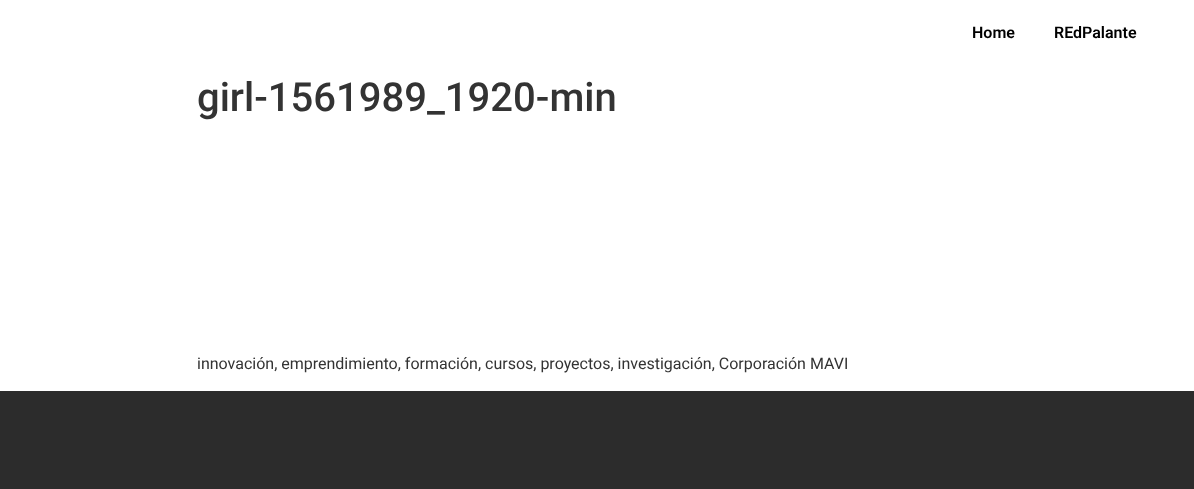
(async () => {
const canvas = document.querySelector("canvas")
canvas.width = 1194
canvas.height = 489
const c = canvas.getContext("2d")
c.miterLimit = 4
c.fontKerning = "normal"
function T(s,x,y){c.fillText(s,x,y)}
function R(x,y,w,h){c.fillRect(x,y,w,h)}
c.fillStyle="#fff"
R(0,0,1194,489)
c.font="600 16px Roboto"
c.fillStyle="#000"
T("Home",972,38)
T("REdPalante",1054,38)
c.font="500 40px Roboto"
c.fillStyle="#333"
T("girl-1561989_1920-min",197,111)
c.font="16px Roboto"
T("innovación, emprendimiento, formación, cursos, proyectos, investigación, Corporación MAVI",197,369)
c.fillStyle="#2c2c2c"
R(0,391,1194,98)
})()
